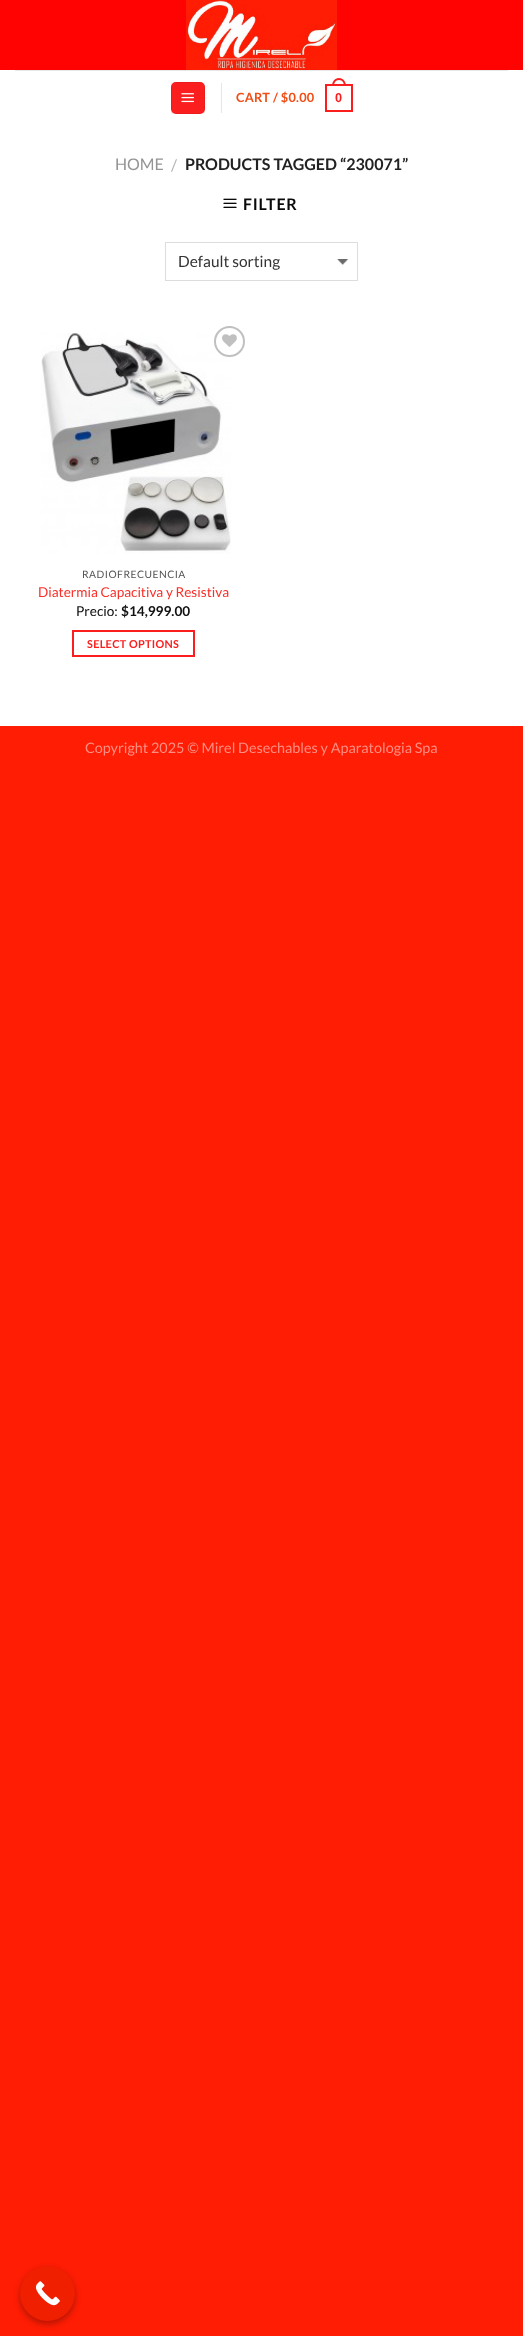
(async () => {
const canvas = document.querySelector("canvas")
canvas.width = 523
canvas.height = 2336
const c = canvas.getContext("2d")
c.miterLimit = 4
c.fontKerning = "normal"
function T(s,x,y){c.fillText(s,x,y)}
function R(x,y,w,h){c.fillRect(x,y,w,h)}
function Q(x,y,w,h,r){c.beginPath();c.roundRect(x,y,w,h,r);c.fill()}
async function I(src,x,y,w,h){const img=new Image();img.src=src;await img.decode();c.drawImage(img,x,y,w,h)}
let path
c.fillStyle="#ff1d04"
R(0,0,523,2336)
c.fillStyle="#fff"
R(0,70,523,656)
c.fillStyle="#ff0303"
R(0,0,523,70)
await I("1.png",186,0,151,70)
c.fillStyle="#e7e7e7"
R(15,70,493,1)
c.fillStyle="#fa1e1e"
Q(171,82,34,32,5)
c.strokeStyle="#0000000d"
c.strokeRect(171.5,82.5,33,31)
await I("2.png",181,93,13,10)
c.fillStyle="#e6e6e6"
R(221,83,1,30)
c.letterSpacing="0.25px"
c.font="bold 12.75px Lato"
c.fillStyle="#f14e17"
T("CART / $0.00",236,102)
c.strokeStyle="#fa1e1e"
c.lineWidth=2
c.strokeRect(326,85,26,26)
c.fillStyle="#fa1e1e"
path = new Path2D("M339 78c4.5 0 7 4 7 8h-14c0-4 2.5-8 7-8zm0 2c3.5 0 5 3 5 6h-10c0-3 1.5-6 5-6z")
c.fill(path,"evenodd")
c.font="bold 12.75px Liberation Sans"
T("0",335,102)
c.letterSpacing="0px"
c.font="16px Lato"
c.fillStyle="#949494"
T("HOME",115,170)
c.fillStyle="#b2b2b2"
T("/",171,171)
c.font="bold 16px Lato"
c.fillStyle="#222"
T("PRODUCTS TAGGED “230071”",185,170)
await I("3.png",223,198,14,10)
c.letterSpacing="0.75px"
c.fillStyle="#0a0a0a"
T("FILTER",243,210)
await I("4.png",337,259,12,6)
c.strokeStyle="#ddd"
c.lineWidth=1
c.strokeRect(165.5,242.5,192,38)
c.letterSpacing="0px"
c.font="15.5px Lato"
c.fillStyle="#333"
T("Default sorting",178,267)
await I("6.png",41,333,190,221)
c.beginPath()
c.arc(229.5,341.5,14.5,0,7)
c.strokeStyle="#c0c0c0"
c.lineWidth=2
c.stroke()
await I("5.png",222,334,15,13)
c.letterSpacing="0.5px"
c.font="10.25px Lato"
c.fillStyle="#545454"
T("RADIOFRECUENCIA",82,578)
c.letterSpacing="0px"
c.font="13.6px Lato"
c.fillStyle="#f93029"
T("Diatermia Capacitiva y Resistiva",38,597)
c.fillStyle="#0a0a0a"
T("Precio:",76,616)
c.font="bold 13.6px Lato"
c.fillStyle="#111"
T("$14,999.00",121,616)
c.strokeStyle="#fa1e1e"
c.strokeRect(73,631,121,25)
c.letterSpacing="0.3px"
c.font="bold 10.9px Lato"
c.fillStyle="#fa1e1e"
T("SELECT OPTIONS",87,648)
c.letterSpacing="0px"
c.font="14.4px Lato"
c.fillStyle="#ff8e82"
T("Copyright 2025 © Mirel Desechables y Aparatologia Spa",85,753)
c.fillStyle="#0000004d"
c.filter="blur(3px)"
c.beginPath()
c.roundRect(20,2269,55,55,27.5)
c.fill()
c.filter="none"
c.fillStyle="#ef1f00"
c.beginPath()
c.arc(47.5,2293.5,27.5,0,7)
c.fill()
await I("7.png",35,2281,25,25)
})()
